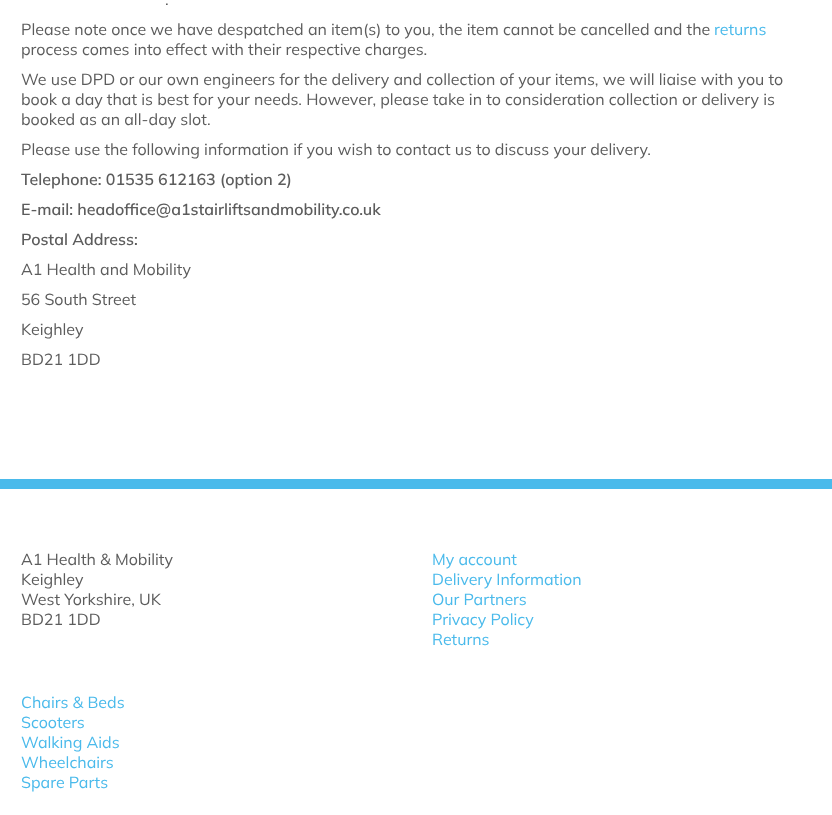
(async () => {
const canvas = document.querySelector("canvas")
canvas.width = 832
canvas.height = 815
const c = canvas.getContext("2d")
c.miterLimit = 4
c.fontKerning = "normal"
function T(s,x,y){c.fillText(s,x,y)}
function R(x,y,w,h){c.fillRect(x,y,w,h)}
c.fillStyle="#fff"
R(0,0,832,815)
c.font="16px Mulish"
c.fillStyle="#5c5c5c"
T(".",165,5)
T("Please note once we have despatched an item(s) to you, the item cannot be cancelled and the",21,35)
c.fillStyle="#4abaeb"
T("returns",714,35)
c.fillStyle="#5c5c5c"
T("process comes into effect with their respective charges.",21,55)
T("We use DPD or our own engineers for the delivery and collection of your items, we will liaise with you to",21,85)
T("book a day that is best for your needs. However, please take in to consideration collection or delivery is",21,105)
T("booked as an all-day slot.",21,125)
T("Please use the following information if you wish to contact us to discuss your delivery.",21,155)
c.font="600 16px Mulish"
T("Telephone: 01535 612163 (option 2)",21,185)
T("E-mail: headoffice@a1stairliftsandmobility.co.uk",21,215)
T("Postal Address:",21,245)
c.font="16px Mulish"
T("A1 Health and Mobility",21,275)
T("56 South Street",21,305)
T("Keighley",21,335)
T("BD21 1DD",21,365)
c.fillStyle="#4abaeb"
R(0,479,832,10)
c.fillStyle="#5c5c5c"
T("A1 Health & Mobility",21,565)
T("Keighley",21,585)
T("West Yorkshire, UK",21,605)
T("BD21 1DD",21,625)
c.fillStyle="#4abaeb"
T("My account",432,565)
T("Delivery Information",432,585)
T("Our Partners",432,605)
T("Privacy Policy",432,625)
T("Returns",432,645)
T("Chairs & Beds",21,708)
T("Scooters",21,728)
T("Walking Aids",21,748)
T("Wheelchairs",21,768)
T("Spare Parts",21,788)
})()
